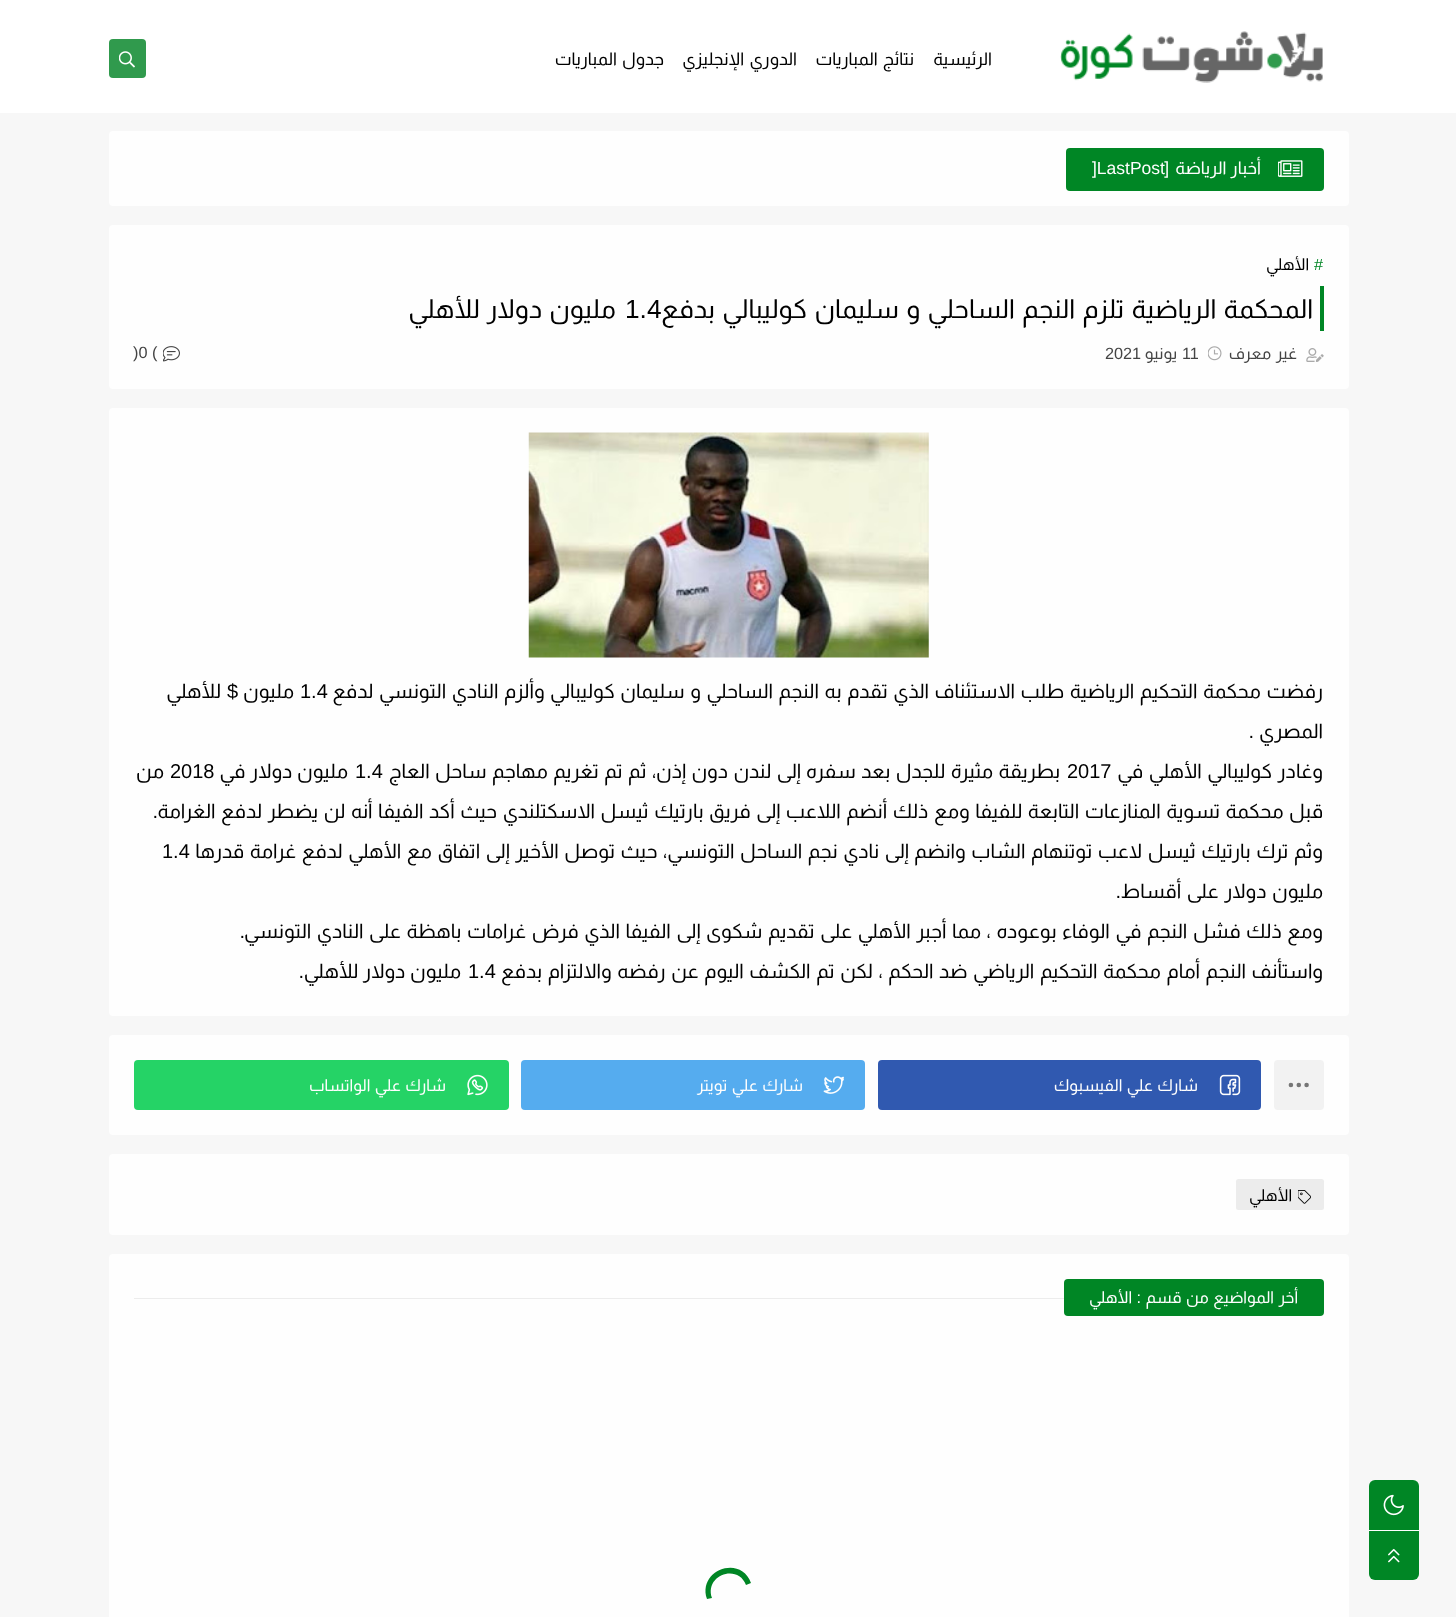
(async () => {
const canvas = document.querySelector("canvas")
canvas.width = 1456
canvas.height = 1617
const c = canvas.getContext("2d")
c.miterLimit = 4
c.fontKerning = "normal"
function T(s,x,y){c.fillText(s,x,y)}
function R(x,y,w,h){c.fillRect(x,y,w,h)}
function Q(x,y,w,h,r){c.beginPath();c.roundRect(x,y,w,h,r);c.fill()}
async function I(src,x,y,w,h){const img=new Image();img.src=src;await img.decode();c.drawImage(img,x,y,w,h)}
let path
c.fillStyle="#f7f7f7"
R(0,0,1456,1617)
c.fillStyle="#fff"
R(0,0,1456,113)
await I("1.png",1060,31,263,52)
c.direction="rtl"
c.font="17.5px Almarai"
c.fillStyle="#000"
T("الرئيسية",992,65)
c.wordSpacing="2px"
T("نتائج المباريات",914,65)
T("الدوري الإنجليزي",797,65)
T("جدول المباريات",664,65)
c.fillStyle="#309a4d"
Q(109,39,37,39,4)
await I("2.png",119,51,16,17)
c.fillStyle="#fefefe"
Q(109,131,1240,75,4)
c.fillStyle="#008625"
Q(1066,148,258,43,4)
await I("3.png",1278,160,25,17)
c.wordSpacing="1px"
c.fillStyle="#fefefe"
T("أخبار الرياضة",1261,174)
c.wordSpacing="0px"
c.font="17.5px Liberation Sans"
T("[",1169,174)
c.direction="ltr"
T("]LastPost",1092,174)
Q(109,225,1240,164,4)
c.font="16.25px Liberation Sans"
c.fillStyle="#008625"
T("#",1314,270)
c.direction="rtl"
c.font="16.25px Almarai"
c.fillStyle="#000"
T("الأهلي",1309,270)
c.fillStyle="#008625"
R(1320,286,4,45)
c.wordSpacing="2.5px"
c.font="26.25px Almarai"
c.fillStyle="#000"
T("المحكمة الرياضية تلزم النجم الساحلي و سليمان كوليبالي بدفع",1313,318)
c.wordSpacing="0px"
c.direction="ltr"
c.font="26.25px Liberation Sans"
T("1.4",625,318)
c.wordSpacing="2px"
c.direction="rtl"
c.font="26.25px Almarai"
T("مليون دولار للأهلي",616,318)
await I("4.png",1306,348,18,14)
c.wordSpacing="1.5px"
c.font="16.25px Almarai"
c.fillStyle="#444"
T("غير معرف",1297,359)
await I("5.png",1208,346,14,15)
c.wordSpacing="0px"
c.direction="ltr"
c.font="16.25px Liberation Sans"
T("11",1182,359)
c.direction="rtl"
c.font="16.25px Almarai"
T("يونيو",1177,359)
c.direction="ltr"
c.font="16.25px Liberation Sans"
T("2021",1105,359)
await I("6.png",163,346,17,16)
T(")0 (",133,358)
c.fillStyle="#fefefe"
Q(109,408,1240,608,4)
await I("7.png",528,432,401,226)
c.wordSpacing="1.9px"
c.direction="rtl"
c.font="20px Almarai"
c.fillStyle="#000"
T("رفضت محكمة التحكيم الرياضية طلب الاستئناف الذي تقدم به النجم الساحلي و سليمان كوليبالي وألزم النادي التونسي لدفع",1323,698)
c.wordSpacing="0px"
c.direction="ltr"
c.font="20px Liberation Sans"
T("1.4",300,698)
c.direction="rtl"
c.font="20px Almarai"
T("مليون",294,698)
c.font="20px Liberation Sans"
T("$",238,698)
c.font="20px Almarai"
T("للأهلي",221,698)
T("المصري",1323,738)
c.font="20px Liberation Sans"
T(".",1254,738)
c.wordSpacing="1.9px"
c.font="20px Almarai"
T("وغادر كوليبالي الأهلي في",1323,778)
c.wordSpacing="0px"
c.direction="ltr"
c.font="20px Liberation Sans"
T("2017",1067,778)
c.wordSpacing="1.75px"
c.direction="rtl"
c.font="20px Almarai"
T("بطريقة مثيرة للجدل بعد سفره إلى لندن دون إذن، ثم تم تغريم مهاجم ساحل العاج",1060,778)
c.wordSpacing="0px"
c.direction="ltr"
c.font="20px Liberation Sans"
T("1.4",355,778)
c.wordSpacing="1px"
c.direction="rtl"
c.font="20px Almarai"
T("مليون دولار في",348,778)
c.wordSpacing="0px"
c.direction="ltr"
c.font="20px Liberation Sans"
T("2018",170,778)
c.direction="rtl"
c.font="20px Almarai"
T("من",164,778)
c.wordSpacing="1.9px"
T("قبل محكمة تسوية المنازعات التابعة للفيفا ومع ذلك أنضم اللاعب إلى فريق بارتيك ثيسل الاسكتلندي حيث أكد الفيفا أنه لن يضطر لدفع الغرامة",1323,818)
c.wordSpacing="0px"
c.font="20px Liberation Sans"
T(".",158,818)
c.wordSpacing="1.9px"
c.font="20px Almarai"
T("وثم ترك بارتيك ثيسل لاعب توتنهام الشاب وانضم إلى نادي نجم الساحل التونسي، حيث توصل الأخير إلى اتفاق مع الأهلي لدفع غرامة قدرها",1323,858)
c.wordSpacing="0px"
c.direction="ltr"
c.font="20px Liberation Sans"
T("1.4",162,858)
c.wordSpacing="1.9px"
c.direction="rtl"
c.font="20px Almarai"
T("مليون دولار على أقساط",1323,898)
c.wordSpacing="0px"
c.font="20px Liberation Sans"
T(".",1121,898)
c.wordSpacing="1.9px"
c.font="20px Almarai"
T("ومع ذلك فشل النجم في الوفاء بوعوده ، مما أجبر الأهلي على تقديم شكوى إلى الفيفا الذي فرض غرامات باهظة على النادي التونسي",1323,938)
c.wordSpacing="0px"
c.font="20px Liberation Sans"
T(".",245,938)
c.wordSpacing="1.9px"
c.font="20px Almarai"
T("واستأنف النجم أمام محكمة التحكيم الرياضي ضد الحكم ، لكن تم الكشف اليوم عن رفضه والالتزام بدفع",1323,978)
c.wordSpacing="0px"
c.direction="ltr"
c.font="20px Liberation Sans"
T("1.4",468,978)
c.wordSpacing="1px"
c.direction="rtl"
c.font="20px Almarai"
T("مليون دولار للأهلي",461,978)
c.wordSpacing="0px"
c.font="20px Liberation Sans"
T(".",304,978)
c.fillStyle="#fefefe"
Q(109,1035,1240,100,4)
c.fillStyle="#f2f2f2"
Q(1274,1060,50,50,4)
c.fillStyle="#767676"
c.beginPath()
c.arc(1298.8,1085,2.3,0,7)
c.fill()
c.beginPath()
c.arc(1306.6,1085,2.3,0,7)
c.fill()
c.beginPath()
c.arc(1290.9,1085,2.3,0,7)
c.fill()
c.fillStyle="#3059b0"
Q(878,1060,383,50,4)
await I("8.png",1219,1074,22,22)
c.wordSpacing="1.5px"
c.font="16.25px Almarai"
c.fillStyle="#fefefe"
T("شارك علي الفيسبوك",1198,1091)
c.fillStyle="#55acef"
Q(521,1060,344,50,4)
await I("9.png",823,1076,21,18)
c.fillStyle="#fefefe"
T("شارك علي تويتر",803,1091)
c.fillStyle="#25d366"
Q(134,1060,375,50,4)
await I("10.png",467,1074,21,22)
c.fillStyle="#fefefe"
T("شارك علي الواتساب",446,1091)
Q(109,1154,1240,81,4)
c.fillStyle="#ececec"
Q(1236,1179,88,31,2.5)
await I("11.png",1298,1190,13,14)
c.wordSpacing="0px"
c.fillStyle="#000"
T("الأهلي",1292,1201)
c.fillStyle="#fefefe"
Q(109,1254,1240,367,4)
c.fillStyle="#008625"
Q(1064,1279,260,37,4)
c.wordSpacing="1.5px"
c.fillStyle="#fefefe"
T("أخر المواضيع من قسم",1298,1303)
c.wordSpacing="0px"
c.font="16.25px Liberation Sans"
T(":",1141,1303)
c.font="16.25px Almarai"
T("الأهلي",1132,1303)
c.fillStyle="#ececec"
R(134,1298,930,1)
c.fillStyle="#008625"
path = new Path2D("M751 1583c-10-29-54-13-44 16l5-1c-8-23 26-35 34-13z")
c.fill(path)
Q(1369,1480,50,100,6)
await I("12.png",1383,1494,21,22)
c.fillStyle="#fff"
R(1369,1530,50,1)
await I("13.png",1388,1548,12,15)
})()
